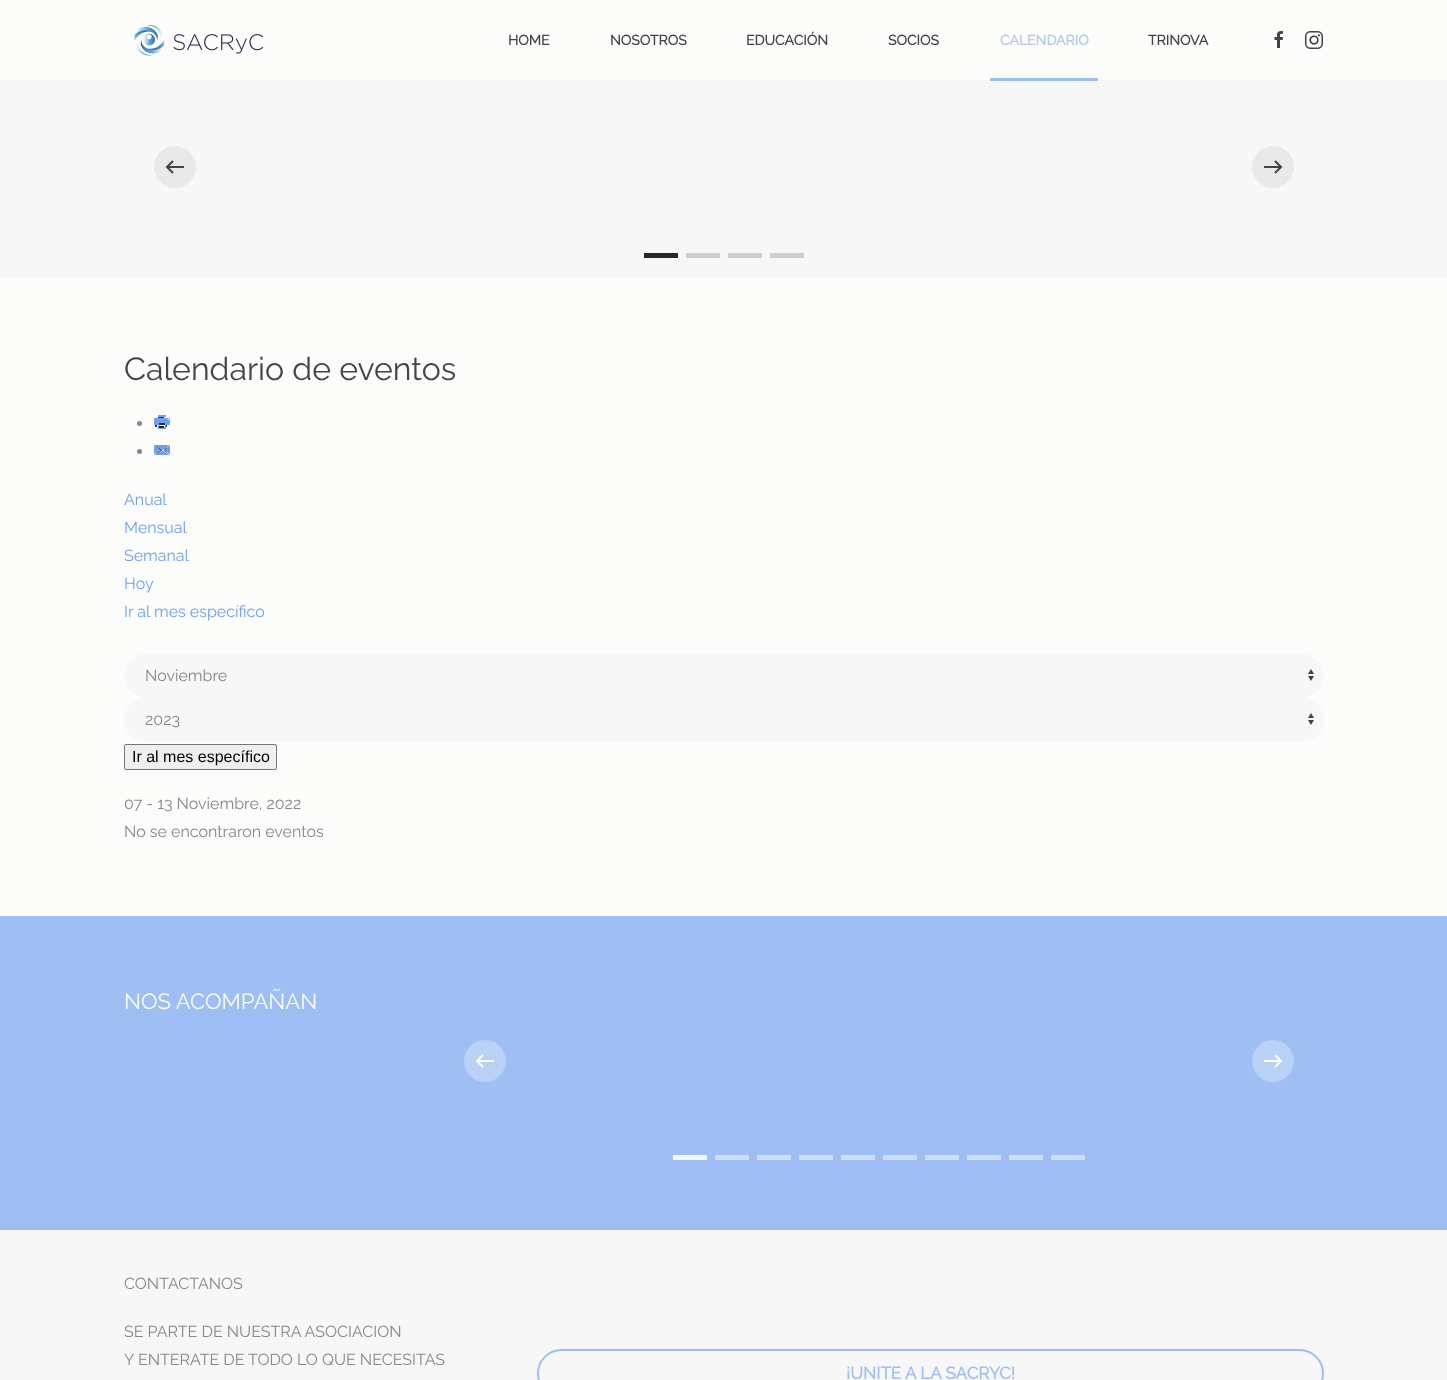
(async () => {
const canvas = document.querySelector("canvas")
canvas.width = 1447
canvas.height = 1380
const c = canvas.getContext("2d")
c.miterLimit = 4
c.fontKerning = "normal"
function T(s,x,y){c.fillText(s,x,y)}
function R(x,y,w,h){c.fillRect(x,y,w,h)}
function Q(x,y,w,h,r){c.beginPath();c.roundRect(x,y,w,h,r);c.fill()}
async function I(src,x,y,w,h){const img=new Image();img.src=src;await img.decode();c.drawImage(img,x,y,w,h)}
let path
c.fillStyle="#fcfcfb"
R(0,0,1447,1380)
await I("1.png",134,24,130,32)
c.font="bold 14px Raleway"
c.fillStyle="#444"
T("HOME",508,45)
T("NOSOTROS",610,45)
T("EDUCACIÓN",746,45)
T("SOCIOS",888,45)
c.fillStyle="#b4c7e7"
T("CALENDARIO",1000,45)
c.fillStyle="#f7f7f7"
R(0,80,1447,198)
c.fillStyle="#9ebef4"
R(990,78,108,3)
c.fillStyle="#444"
T("TRINOVA",1148,45)
await I("2.png",1274,31,9,17)
await I("3.png",1305,31,18,18)
c.fillStyle="#e9e9e9"
c.beginPath()
c.arc(175,167,21,0,7)
c.fill()
path = new Path2D("M173 161l-6 6l6 6m11-6h-17")
c.strokeStyle="#444"
c.lineWidth=2
c.stroke(path)
c.beginPath()
c.arc(1273,167,21,0,7)
c.fill()
path = new Path2D("M1275 173l6-6l-6-6m6 6h-17")
c.stroke(path)
c.fillStyle="#282829"
R(644,253,34,5)
c.fillStyle="#cecece"
R(686,253,34,5)
R(728,253,34,5)
R(770,253,34,5)
c.font="100 32px Raleway"
c.fillStyle="#444"
T("Calendario de eventos",124,380)
c.fillStyle="#858888"
c.beginPath()
c.arc(139.5,423.5,2.5,0,7)
c.fill()
await I("4.png",155,417,12,11)
await I("5.png",154,415,16,14)
c.beginPath()
c.arc(139.5,451.5,2.5,0,7)
c.fill()
await I("6.png",155,445,12,10)
await I("7.png",154,445,16,10)
c.font="100 16px Raleway"
c.fillStyle="#709fef"
T("Anual",124,505)
T("Mensual",124,533)
T("Semanal",124,561)
T("Hoy",124,589)
T("Ir al mes específico",124,617)
c.fillStyle="#f7f7f7"
Q(124,654,1200,44,22)
await I("8.png",1308,669,6,12)
c.fillStyle="#858888"
T("Noviembre",145,681)
c.fillStyle="#f7f7f7"
Q(124,698,1200,44,22)
await I("8.png",1308,713,6,12)
c.fillStyle="#858888"
T("2023",145,725)
c.fillStyle="#efefef"
c.beginPath()
c.roundRect(124.5,744.5,152,25,1.5)
c.fill()
c.strokeStyle="#767676"
c.lineWidth=1
c.stroke()
c.font="16px Liberation Sans"
c.fillStyle="#000"
T("Ir al mes específico",132,762)
c.font="100 16px Raleway"
c.fillStyle="#858888"
T("07 - 13 Noviembre, 2022",124,809)
T("No se encontraron eventos",124,837)
c.fillStyle="#9ebef4"
R(0,916,1447,314)
c.font="100 22px Raleway"
c.fillStyle="#fcfcfb"
T("NOS ACOMPAÑAN",124,1009)
c.fillStyle="#bad1f6"
c.beginPath()
c.arc(485,1061,21,0,7)
c.fill()
path = new Path2D("M483 1055l-6 6l6 6m11-6h-17")
c.strokeStyle="#fcfcfb"
c.lineWidth=2
c.stroke(path)
c.beginPath()
c.arc(1273,1061,21,0,7)
c.fill()
path = new Path2D("M1275 1067l6-6l-6-6m6 6h-17")
c.stroke(path)
c.fillStyle="#f3f6fa"
R(673,1155,34,5)
c.fillStyle="#cdddf8"
R(715,1155,34,5)
R(757,1155,34,5)
R(799,1155,34,5)
R(841,1155,34,5)
R(883,1155,34,5)
R(925,1155,34,5)
R(967,1155,34,5)
R(1009,1155,34,5)
R(1051,1155,34,5)
c.fillStyle="#f7f7f7"
R(0,1230,1447,150)
c.font="100 16px Raleway"
c.fillStyle="#858888"
T("CONTACTANOS",124,1289)
T("SE PARTE DE NUESTRA ASOCIACION",124,1337)
T("Y ENTERATE DE TODO LO QUE NECESITAS",124,1365)
c.beginPath()
c.roundRect(538,1350,785,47,23.5)
c.strokeStyle="#9ebef4"
c.stroke()
c.font="bold 17px Raleway"
c.fillStyle="#9ebef4"
T("¡UNITE A LA SACRYC!",846,1379)
})()
